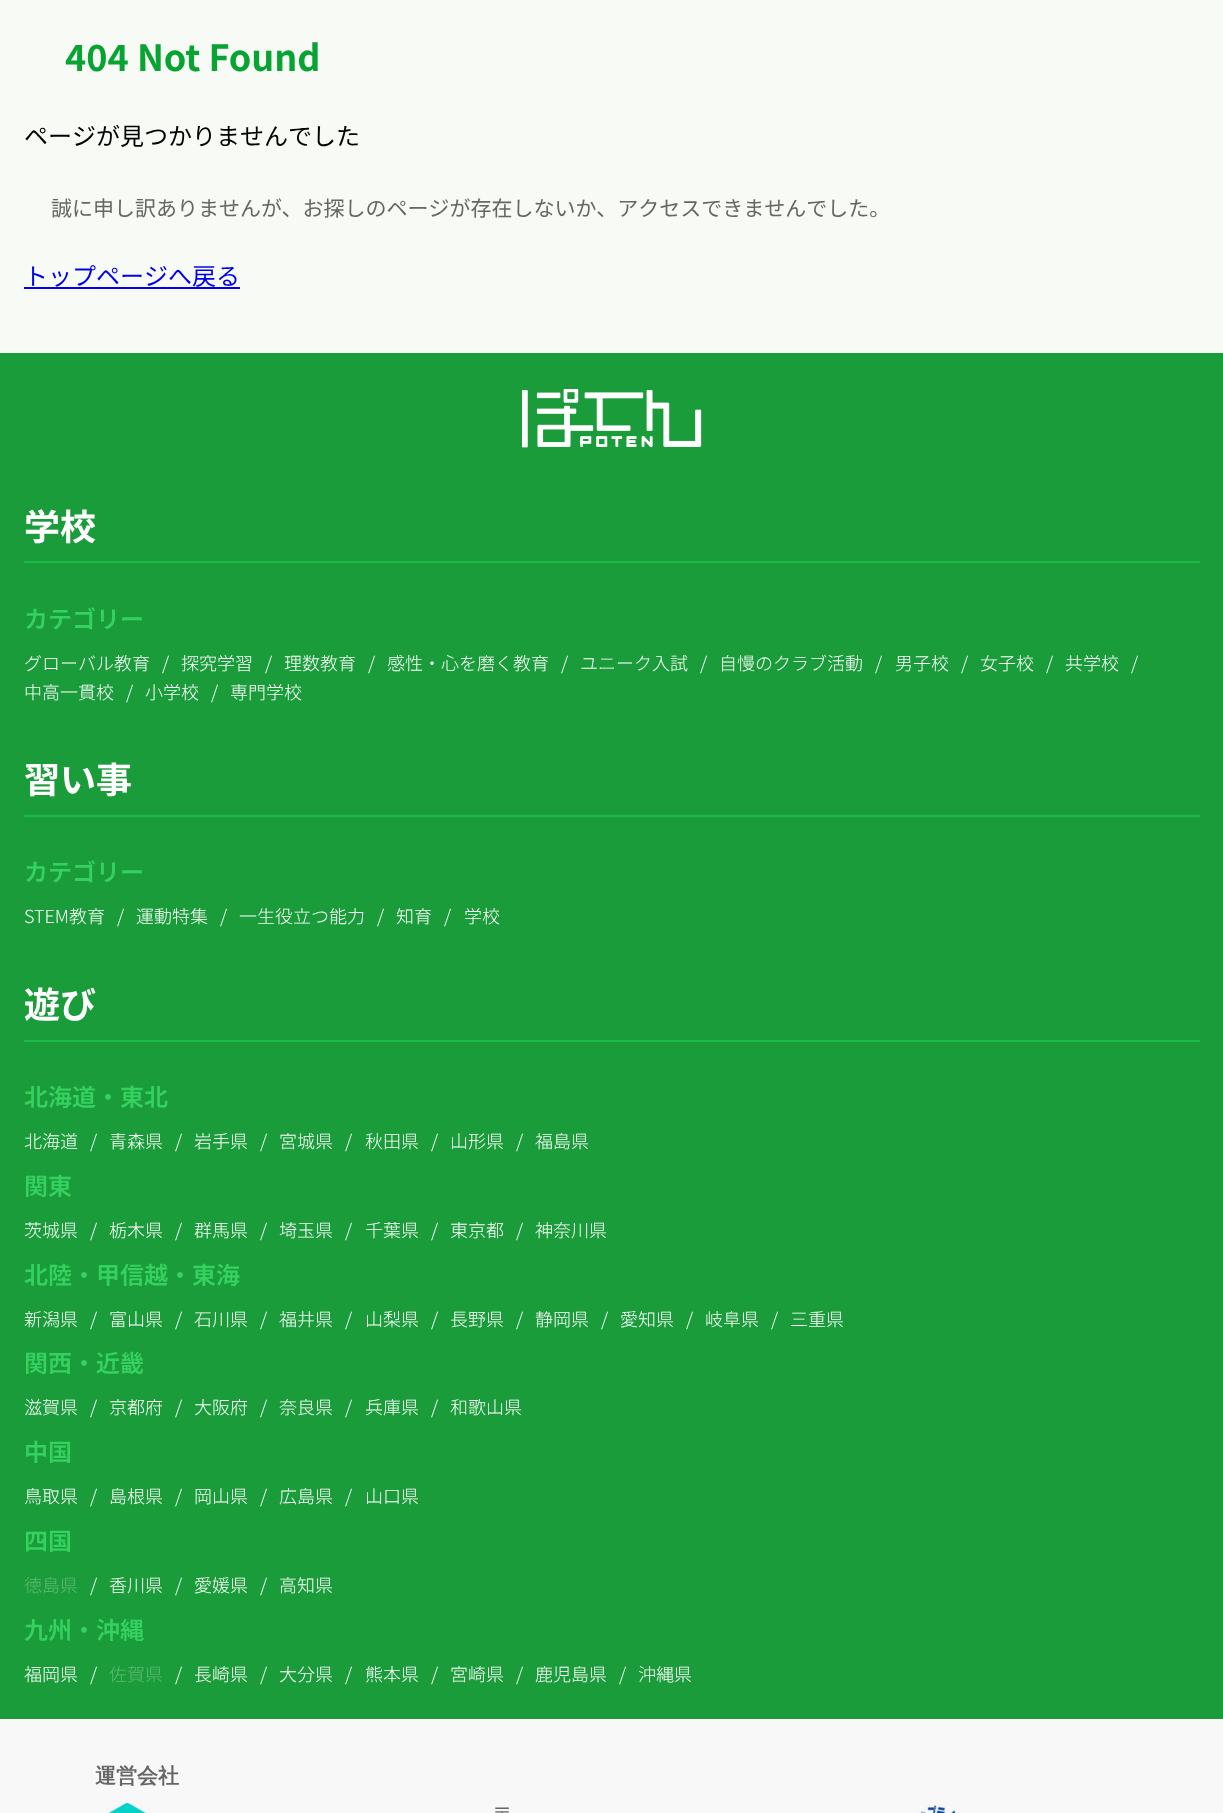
(async () => {
const canvas = document.querySelector("canvas")
canvas.width = 1223
canvas.height = 1813
const c = canvas.getContext("2d")
c.miterLimit = 4
c.fontKerning = "normal"
function T(s,x,y){c.fillText(s,x,y)}
function R(x,y,w,h){c.fillRect(x,y,w,h)}
async function I(src,x,y,w,h){const img=new Image();img.src=src;await img.decode();c.drawImage(img,x,y,w,h)}
c.fillStyle="#f8fbf5"
R(0,0,1223,1813)
c.font="bold 36px Noto Sans JP"
c.fillStyle="#08a433"
T("404 Not Found",65,71)
c.font="24px Noto Sans JP"
c.fillStyle="#000"
T("ページが見つかりませんでした",24,145)
c.font="21px Noto Sans JP"
c.fillStyle="#666"
T("誠に申し訳ありませんが、お探しのページが存在しないか、アクセスできませんでした。",51,216)
c.font="24px Noto Sans JP"
c.fillStyle="#00e"
T("トップページへ戻る",24,285)
R(24,287,216,2)
c.fillStyle="#1a9c3a"
R(0,353,1223,1366)
await I("1.png",522,389,180,59)
c.fillStyle="#18bd47"
R(24,561,1176,2)
c.font="bold 36px Noto Sans JP"
c.fillStyle="#fff"
T("学校",24,540)
c.font="600 24px Noto Sans JP"
c.fillStyle="#35d161"
T("カテゴリー",24,628)
c.font="300 18px Noto Sans JP"
c.fillStyle="#fff"
T("グローバル教育",24,670)
T("/",162,670)
T("探究学習",181,670)
T("/",265,670)
T("理数教育",284,670)
T("/",368,670)
T("感性・心を磨く教育",387,670)
T("/",561,670)
T("ユニーク入試",580,670)
T("/",700,670)
T("自慢のクラブ活動",719,670)
T("/",875,670)
T("男子校",895,670)
T("/",961,670)
T("女子校",980,670)
T("/",1046,670)
T("共学校",1065,670)
T("/",1131,670)
T("中高一貫校",24,699)
T("/",126,699)
T("小学校",145,699)
T("/",211,699)
T("専門学校",230,699)
c.fillStyle="#18bd47"
R(24,815,1176,2)
c.font="bold 36px Noto Sans JP"
c.fillStyle="#fff"
T("習い事",24,793)
c.font="600 24px Noto Sans JP"
c.fillStyle="#35d161"
T("カテゴリー",24,881)
c.font="300 18px Noto Sans JP"
c.fillStyle="#fff"
T("STEM教育",24,923)
T("/",117,923)
T("運動特集",136,923)
T("/",220,923)
T("一生役立つ能力",239,923)
T("/",377,923)
T("知育",396,923)
T("/",444,923)
T("学校",464,923)
c.fillStyle="#18bd47"
R(24,1040,1176,2)
c.font="bold 36px Noto Sans JP"
c.fillStyle="#fff"
T("遊び",24,1018)
c.font="600 24px Noto Sans JP"
c.fillStyle="#35d161"
T("北海道・東北",24,1106)
c.font="300 18px Noto Sans JP"
c.fillStyle="#fff"
T("北海道",24,1148)
T("/",90,1148)
T("青森県",109,1148)
T("/",175,1148)
T("岩手県",194,1148)
T("/",260,1148)
T("宮城県",279,1148)
T("/",345,1148)
T("秋田県",365,1148)
T("/",431,1148)
T("山形県",450,1148)
T("/",516,1148)
T("福島県",535,1148)
c.font="600 24px Noto Sans JP"
c.fillStyle="#35d161"
T("関東",24,1195)
c.font="300 18px Noto Sans JP"
c.fillStyle="#fff"
T("茨城県",24,1237)
T("/",90,1237)
T("栃木県",109,1237)
T("/",175,1237)
T("群馬県",194,1237)
T("/",260,1237)
T("埼玉県",279,1237)
T("/",345,1237)
T("千葉県",365,1237)
T("/",431,1237)
T("東京都",450,1237)
T("/",516,1237)
T("神奈川県",535,1237)
c.font="600 24px Noto Sans JP"
c.fillStyle="#35d161"
T("北陸・甲信越・東海",24,1284)
c.font="300 18px Noto Sans JP"
c.fillStyle="#fff"
T("新潟県",24,1326)
T("/",90,1326)
T("富山県",109,1326)
T("/",175,1326)
T("石川県",194,1326)
T("/",260,1326)
T("福井県",279,1326)
T("/",345,1326)
T("山梨県",365,1326)
T("/",431,1326)
T("長野県",450,1326)
T("/",516,1326)
T("静岡県",535,1326)
T("/",601,1326)
T("愛知県",620,1326)
T("/",686,1326)
T("岐阜県",705,1326)
T("/",771,1326)
T("三重県",790,1326)
c.font="600 24px Noto Sans JP"
c.fillStyle="#35d161"
T("関西・近畿",24,1372)
c.font="300 18px Noto Sans JP"
c.fillStyle="#fff"
T("滋賀県",24,1414)
T("/",90,1414)
T("京都府",109,1414)
T("/",175,1414)
T("大阪府",194,1414)
T("/",260,1414)
T("奈良県",279,1414)
T("/",345,1414)
T("兵庫県",365,1414)
T("/",431,1414)
T("和歌山県",450,1414)
c.font="600 24px Noto Sans JP"
c.fillStyle="#35d161"
T("中国",24,1461)
c.font="300 18px Noto Sans JP"
c.fillStyle="#fff"
T("鳥取県",24,1503)
T("/",90,1503)
T("島根県",109,1503)
T("/",175,1503)
T("岡山県",194,1503)
T("/",260,1503)
T("広島県",279,1503)
T("/",345,1503)
T("山口県",365,1503)
c.font="600 24px Noto Sans JP"
c.fillStyle="#35d161"
T("四国",24,1550)
c.font="300 18px Noto Sans JP"
c.fillStyle="#5fba75"
T("徳島県",24,1592)
c.fillStyle="#fff"
T("/",90,1592)
T("香川県",109,1592)
T("/",175,1592)
T("愛媛県",194,1592)
T("/",260,1592)
T("高知県",279,1592)
c.font="600 24px Noto Sans JP"
c.fillStyle="#35d161"
T("九州・沖縄",24,1639)
c.font="300 18px Noto Sans JP"
c.fillStyle="#fff"
T("福岡県",24,1681)
T("/",90,1681)
c.fillStyle="#5fba75"
T("佐賀県",109,1681)
c.fillStyle="#fff"
T("/",175,1681)
T("長崎県",194,1681)
T("/",260,1681)
T("大分県",279,1681)
T("/",345,1681)
T("熊本県",365,1681)
T("/",431,1681)
T("宮崎県",450,1681)
T("/",516,1681)
T("鹿児島県",535,1681)
T("/",619,1681)
T("沖縄県",638,1681)
c.fillStyle="#f8f8f8"
R(0,1719,1223,94)
c.font="bold 21px WenQuanYi Zen Hei"
c.fillStyle="#666"
T("運営会社",95,1783)
await I("2.png",108,1803,38,10)
c.font="500 21px WenQuanYi Zen Hei"
T("〒",494,1822)
await I("3.png",918,1805,38,8)
})()
